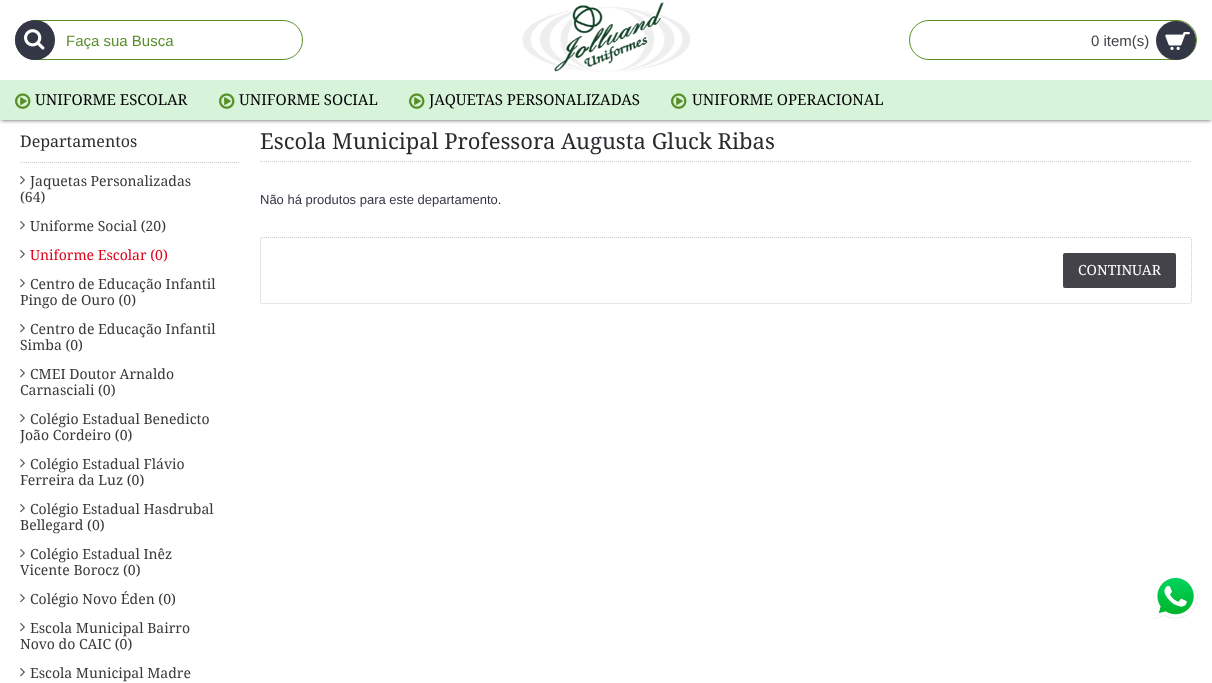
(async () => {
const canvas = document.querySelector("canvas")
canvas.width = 1212
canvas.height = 683
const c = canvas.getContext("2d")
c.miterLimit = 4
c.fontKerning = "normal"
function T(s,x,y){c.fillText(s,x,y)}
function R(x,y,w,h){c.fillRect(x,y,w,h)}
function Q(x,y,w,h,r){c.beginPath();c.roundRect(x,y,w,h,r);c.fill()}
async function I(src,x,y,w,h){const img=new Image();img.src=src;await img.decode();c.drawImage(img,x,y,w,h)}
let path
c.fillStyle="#fff"
R(0,0,1212,683)
c.fillStyle="#000000b3"
c.filter="blur(2px)"
c.beginPath()
c.rect(1,-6,1210,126)
c.fill()
c.filter="none"
c.fillStyle="#fff"
R(0,0,1212,80)
c.beginPath()
c.roundRect(15.5,20.5,287,39,19.5)
c.strokeStyle="#588f27"
c.stroke()
c.fillStyle="#333745"
c.beginPath()
c.arc(35,40,20,0,7)
c.fill()
await I("1.png",24,29,21,21)
c.font="15px Liberation Sans"
c.fillStyle="#588f27"
T("Faça sua Busca",66,46)
await I("2.png",522,2,169,70)
c.beginPath()
c.roundRect(909.5,20.5,287,39,19.5)
c.stroke()
c.fillStyle="#444349"
T("0 item(s)",1091,46)
c.fillStyle="#333745"
Q(1156,21,40,39,19.5)
await I("3.png",1165,32,25,18)
c.fillStyle="#d7f4db"
R(0,80,1212,40)
path = new Path2D("M203.5 80v40")
c.strokeStyle="#e4e4e4"
c.setLineDash([1,1])
c.stroke(path)
await I("4.png",15,93,16,16)
c.font="15px Droid Serif"
c.fillStyle="#000"
T("UNIFORME ESCOLAR",35,105)
path = new Path2D("M393.5 80v40")
c.stroke(path)
await I("4.png",219,93,16,16)
T("UNIFORME SOCIAL",239,105)
path = new Path2D("M655.5 80v40")
c.stroke(path)
await I("4.png",409,93,16,16)
T("JAQUETAS PERSONALIZADAS",429,105)
path = new Path2D("M899.5 80v40")
c.stroke(path)
await I("4.png",671,93,16,16)
T("UNIFORME OPERACIONAL",692,105)
path = new Path2D("M20 162.5h220")
c.strokeStyle="#ccc"
c.stroke(path)
c.font="16px Droid Serif"
c.fillStyle="#2a2b2e"
T("Departamentos",20,147)
await I("5.png",20,176,5,9)
c.font="14px Droid Serif"
c.fillStyle="#383838"
T("Jaquetas Personalizadas",30,186)
T("(64)",20,202)
await I("5.png",20,221,5,9)
T("Uniforme Social (20)",30,231)
await I("5.png",20,250,5,9)
c.fillStyle="#dd0017"
T("Uniforme Escolar (0)",30,260)
await I("5.png",20,279,5,9)
c.fillStyle="#383838"
T("Centro de Educação Infantil",30,289)
T("Pingo de Ouro (0)",20,305)
await I("5.png",20,324,5,9)
T("Centro de Educação Infantil",30,334)
T("Simba (0)",20,350)
await I("5.png",20,369,5,9)
T("CMEI Doutor Arnaldo",30,379)
T("Carnasciali (0)",20,395)
await I("5.png",20,414,5,9)
T("Colégio Estadual Benedicto",30,424)
T("João Cordeiro (0)",20,440)
await I("5.png",20,459,5,9)
T("Colégio Estadual Flávio",30,469)
T("Ferreira da Luz (0)",20,485)
await I("5.png",20,504,5,9)
T("Colégio Estadual Hasdrubal",30,514)
T("Bellegard (0)",20,530)
await I("5.png",20,549,5,9)
T("Colégio Estadual Inêz",30,559)
T("Vicente Borocz (0)",20,575)
await I("5.png",20,594,5,9)
T("Colégio Novo Éden (0)",30,604)
await I("5.png",20,623,5,9)
T("Escola Municipal Bairro",30,633)
T("Novo do CAIC (0)",20,649)
await I("5.png",20,668,5,9)
T("Escola Municipal Madre",30,678)
path = new Path2D("M260 161.5h932")
c.stroke(path)
c.font="22px Droid Serif"
c.fillStyle="#2a2b2e"
T("Escola Municipal Professora Augusta Gluck Ribas",260,149)
c.font="13px Liberation Sans"
c.fillStyle="#333745"
T("Não há produtos para este departamento.",260,204)
path = new Path2D("M262 237.5h928c1 0 1.5 .5 1.5 1.5v63c0 1-.5 1.5-1.5 1.5h-928c-1 0-1.5-.5-1.5-1.5v-63c0-1 .5-1.5 1.5-1.5z")
c.stroke(path)
c.fillStyle="#444349"
Q(1063,253,113,35,2)
c.font="14px Droid Serif"
c.fillStyle="#fff"
T("CONTINUAR",1078,275)
await I("6.png",1153,577,45,42)
})()
